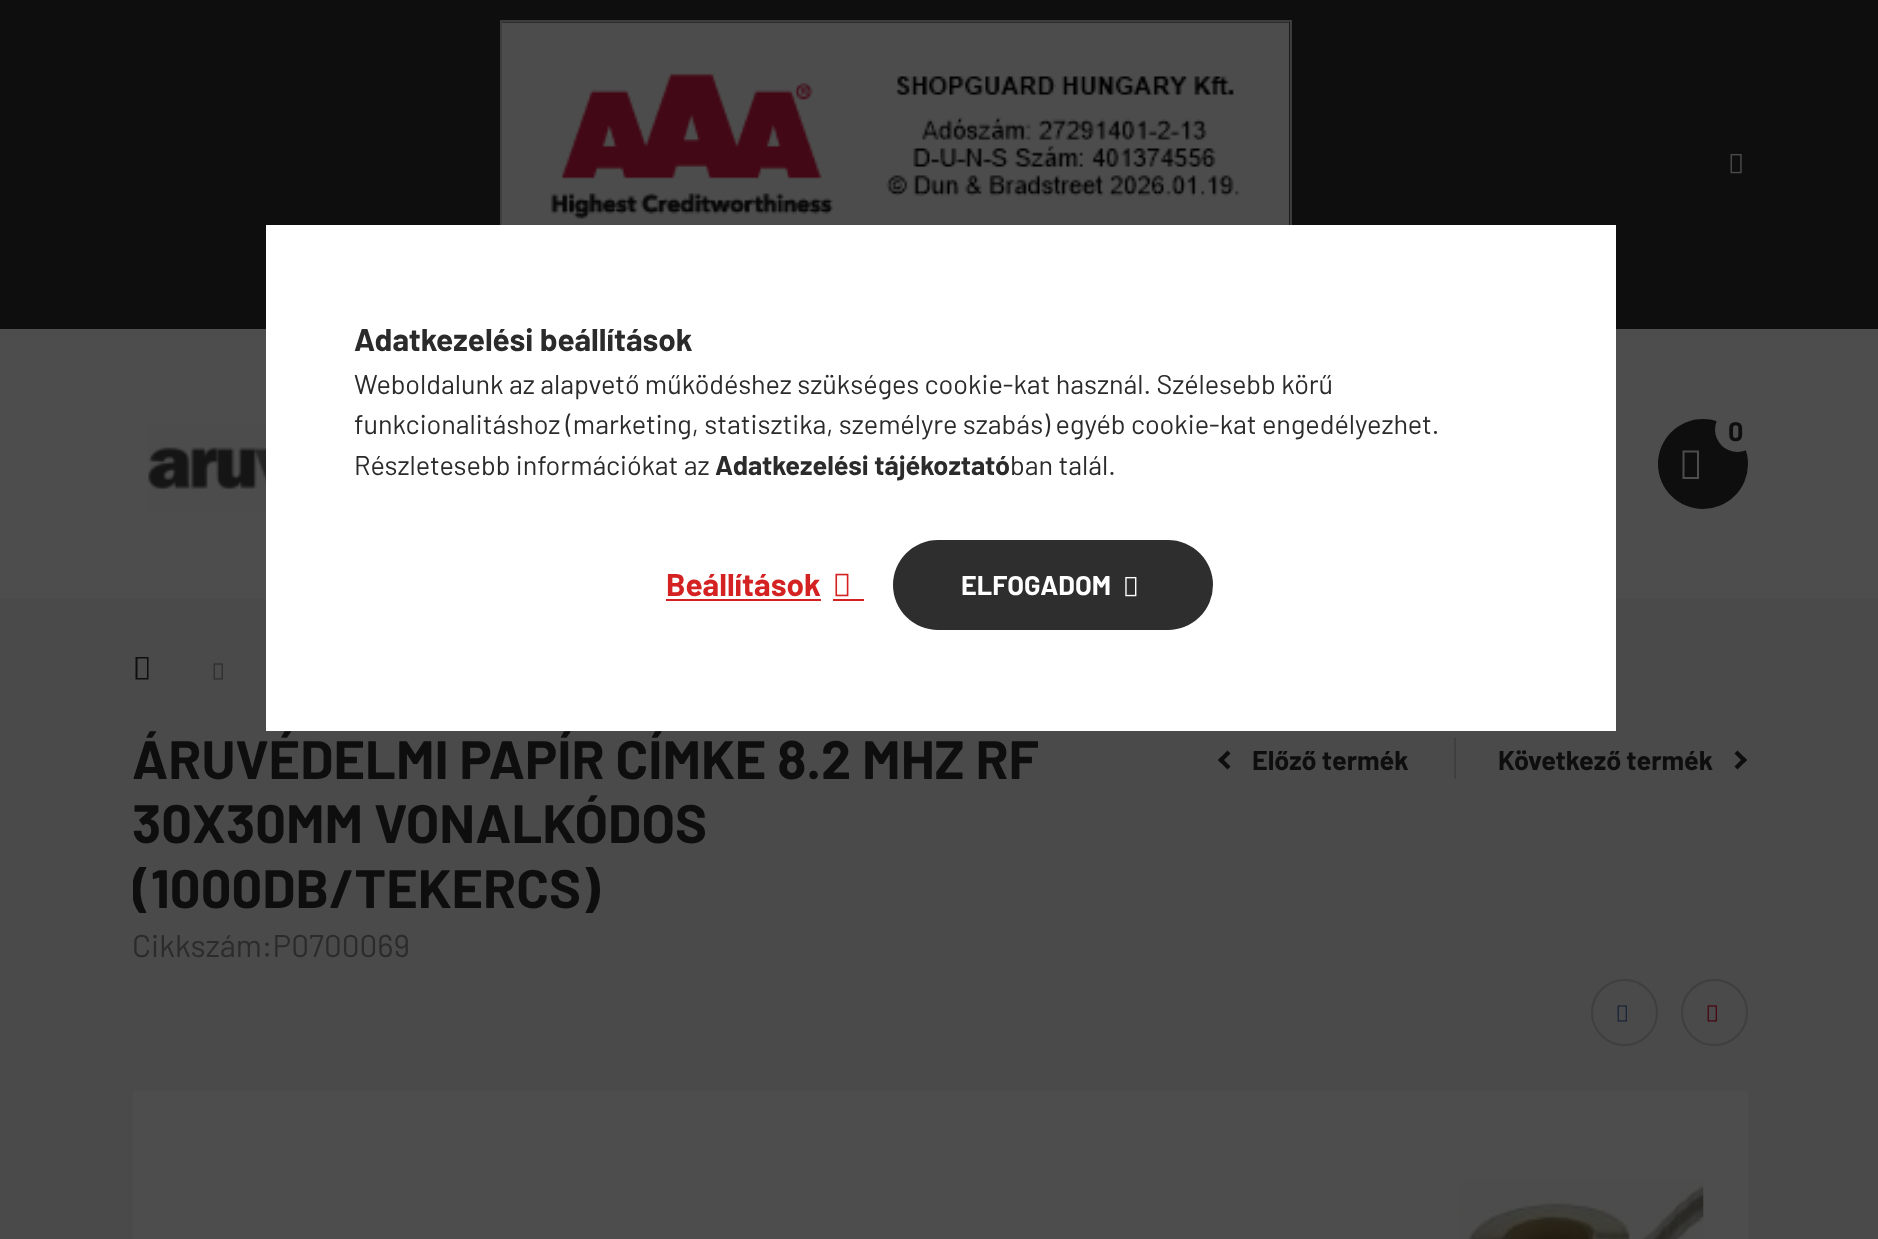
(async () => {
const canvas = document.querySelector("canvas")
canvas.width = 1878
canvas.height = 1239
const c = canvas.getContext("2d")
c.miterLimit = 4
c.fontKerning = "normal"
function T(s,x,y){c.fillText(s,x,y)}
function R(x,y,w,h){c.fillRect(x,y,w,h)}
function Q(x,y,w,h,r){c.beginPath();c.roundRect(x,y,w,h,r);c.fill()}
async function I(src,x,y,w,h){const img=new Image();img.src=src;await img.decode();c.drawImage(img,x,y,w,h)}
let gradient, path
c.fillStyle="#4a4a4a"
R(0,0,1878,1239)
c.fillStyle="#0e0e0e"
R(0,0,1878,329)
c.strokeStyle="#3d3d3d"
c.lineWidth=2
c.strokeRect(501,21,790,217)
c.fillStyle="#4d4d4d"
R(0,329,1878,270)
c.fillStyle="#fff"
R(266,225,1350,506)
c.font="bold 31.5px Barlow"
c.fillStyle="#2b2b2b"
T("Adatkezelési beállítások",354,351)
c.font="27px Barlow"
T("Weboldalunk az alapvető működéshez szükséges cookie-kat használ. Szélesebb körű",354,394)
T("funkcionalitáshoz (marketing, statisztika, személyre szabás) egyéb cookie-kat engedélyezhet.",354,434)
T("Részletesebb információkat az",354,475)
c.font="bold 27px Barlow"
T("Adatkezelési tájékoztató",715,475)
c.font="27px Barlow"
T("ban talál.",1010,475)
c.font="bold 31.5px Barlow"
c.fillStyle="#d42222"
T("Beállítások",666,596)
R(666,599,155,2)
await I("1.png",835,573,14,24)
R(833,599,31,2)
gradient = c.createLinearGradient(893,585,1852,585)
gradient.addColorStop(.33,"#2e2e2e")
gradient.addColorStop(.67,"#d42222")
c.fillStyle = gradient
Q(893,540,320,90,45)
c.font="bold 27px Barlow"
c.fillStyle="#fff"
T("ELFOGADOM",961,595)
await I("2.png",1125,576,12,21)
await I("3.png",501,22,789,203)
await I("4.png",1730,153,12,21)
await I("5.png",148,424,118,88)
c.fillStyle="#0e0e0e"
c.beginPath()
c.arc(1703,464,45,0,7)
c.fill()
c.fillStyle="#4d4d4d"
c.beginPath()
c.arc(1737.5,429.5,22.5,0,7)
c.fill()
c.fillStyle="#0e0e0e"
T("0",1728,441)
c.fillStyle="#4d4d4d"
path = new Path2D("M1682.5 479v-28.5h16.5v28.5zm2-2h12.5v-24.5h-12.5z")
c.fill(path)
c.fillStyle="#0e0e0e"
path = new Path2D("M135.5 679.5v-22.5h13v22.5zm2-1.5h9.5v-19.5h-9.5z")
c.fill(path)
await I("6.png",213,663,10,17)
c.font="bold 54px Barlow"
T("ÁRUVÉDELMI PAPÍR CÍMKE 8.2 MHZ RF",132,779)
T("30X30MM VONALKÓDOS",132,843)
c.save()
c.beginPath()
c.rect(133,727,1615,193)
c.clip()
T("(1000DB/TEKERCS)",132,908)
c.restore()
path = new Path2D("M1218 760l9.5-9.5l3 3l-9.5 9.5z")
c.fill(path)
path = new Path2D("M1221 757l9.5 9.5l-3 3l-9.5-9.5z")
c.fill(path)
c.font="bold 27px Barlow"
T("Előző termék",1252,770)
c.fillStyle="#3f3f3f"
R(1454,738,2,41)
c.fillStyle="#0e0e0e"
T("Következő termék",1498,770)
path = new Path2D("M1734.5 766.5l9.5-9.5l3 3l-9.5 9.5z")
c.fill(path)
path = new Path2D("M1737.5 750.5l9.5 9.5l-3 3l-9.5-9.5z")
c.fill(path)
c.font="31.5px Barlow"
c.fillStyle="#2b2b2b"
T("Cikkszám:P0700069",132,957)
c.beginPath()
c.arc(1624.5,1012.5,32.5,0,7)
c.strokeStyle="#3f3f3f"
c.stroke()
await I("7.png",1617,1005,10,17)
c.beginPath()
c.arc(1714.5,1012.5,32.5,0,7)
c.stroke()
await I("8.png",1707,1005,10,17)
c.fillStyle="#4d4d4d"
R(133,1091,1615,148)
await I("9.png",1460,1181,244,58)
})()
